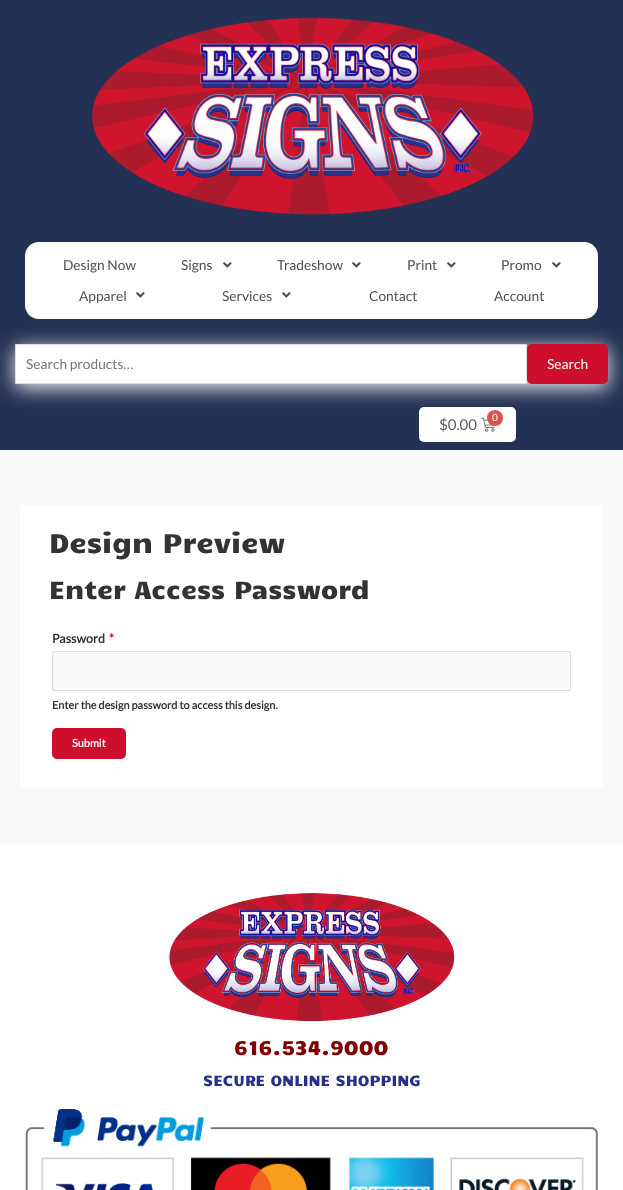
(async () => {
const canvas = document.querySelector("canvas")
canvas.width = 623
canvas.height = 1190
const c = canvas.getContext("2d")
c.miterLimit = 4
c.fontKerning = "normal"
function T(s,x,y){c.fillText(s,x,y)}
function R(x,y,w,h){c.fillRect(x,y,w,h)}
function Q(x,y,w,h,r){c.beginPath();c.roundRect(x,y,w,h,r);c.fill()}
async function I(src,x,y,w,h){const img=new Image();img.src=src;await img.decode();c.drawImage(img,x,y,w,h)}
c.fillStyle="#f9f9f9"
R(0,0,623,1190)
c.fillStyle="#233254"
R(0,0,623,450)
await I("1.png",91,17,443,198)
c.fillStyle="#fff"
Q(25,242,573,77,14)
c.font="13.75px Lato"
c.fillStyle="#4e4e4e"
T("Design Now",63,270)
T("Signs",181,270)
await I("2.png",223,262,9,6)
T("Tradeshow",277,270)
await I("2.png",352,262,9,6)
T("Print",407,270)
await I("2.png",447,262,9,6)
T("Promo",501,270)
await I("2.png",552,262,9,6)
T("Apparel",79,301)
await I("2.png",136,292,9,6)
T("Services",222,301)
await I("2.png",282,292,9,6)
T("Contact",369,301)
T("Account",494,301)
c.fillStyle="#efefef"
c.filter="blur(10px)"
c.beginPath()
c.rect(15,348,593,40)
c.fill()
c.filter="none"
c.fillStyle="#fff"
c.beginPath()
c.rect(15.5,344.5,511,39)
c.fill()
c.strokeStyle="#ddd"
c.stroke()
c.fillStyle="#757575"
T("Search products…",26,369)
c.fillStyle="#ce0e2d"
Q(527,344,81,40,5)
c.fillStyle="#fff"
T("Search",547,369)
Q(419,407,97,35,5)
c.font="15px Lato"
c.fillStyle="#5b5b5b"
T("$0.00",439,430)
await I("3.png",481,417,14,15)
c.fillStyle="#d9534f"
c.beginPath()
c.arc(495,418,8,0,7)
c.fill()
c.font="10px Lato"
c.fillStyle="#fff"
T("0",492,421)
R(20,505,583,284)
c.font="27.25px Candal"
c.fillStyle="#333"
T("Design Preview",49,553)
c.font="25px Candal"
T("Enter Access Password",49,599)
c.font="bold 12.5px Lato"
T("Password",52,643)
c.fillStyle="#f00"
T("*",109,643)
c.fillStyle="#fafafa"
c.beginPath()
c.roundRect(52.5,651.5,518,39,1.5)
c.fill()
c.stroke()
c.font="bold 10.9px Lato"
c.fillStyle="#333"
T("Enter the design password to access this design.",52,709)
c.fillStyle="#ce0e2d"
Q(52,728,74,31,5)
c.fillStyle="#fff"
T("Submit",72,747)
R(0,843,623,347)
await I("4.png",169,893,286,129)
c.font="20px Candal"
c.fillStyle="#800000"
T("616.534.9000",234,1055)
c.font="15px Candal"
c.fillStyle="#27318a"
T("SECURE ONLINE SHOPPING",203,1086)
await I("5.png",25,1109,573,81)
})()
